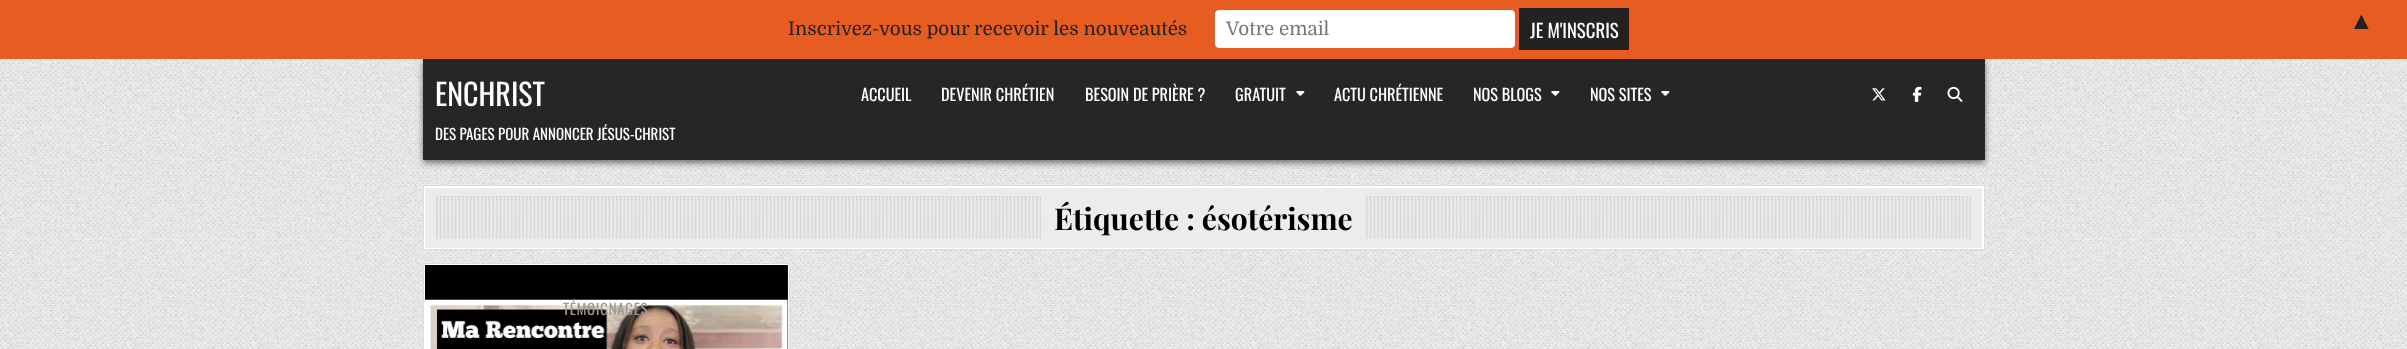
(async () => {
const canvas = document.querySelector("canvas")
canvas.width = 2407
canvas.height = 349
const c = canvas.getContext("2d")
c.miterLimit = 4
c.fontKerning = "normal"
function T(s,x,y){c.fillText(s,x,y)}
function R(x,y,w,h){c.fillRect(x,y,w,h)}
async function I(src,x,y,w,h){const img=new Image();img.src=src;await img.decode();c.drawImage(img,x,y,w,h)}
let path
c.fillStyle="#fff"
R(0,0,2407,349)
await I("1.png",0,59,2407,290)
c.fillStyle="#00000080"
c.filter="blur(3px)"
c.beginPath()
c.rect(423,61,1562,102)
c.fill()
c.filter="none"
c.fillStyle="#e75d21"
R(0,0,2407,59)
c.font="18.75px Domine"
c.fillStyle="#222"
T("Inscrivez-vous pour recevoir les nouveautés",788,35)
c.fillStyle="#fff"
c.beginPath()
c.roundRect(1215.5,10.5,299,37,3.5)
c.fill()
c.strokeStyle="#fff"
c.stroke()
c.fillStyle="#757575"
T("Votre email",1226,35)
c.fillStyle="#222"
R(1519,8,110,42)
c.font="18.75px Oswald"
c.fillStyle="#fff"
T("JE M'INSCRIS",1530,38)
c.font="25px Liberation Sans"
c.fillStyle="#222"
T("▲",2349,29)
c.fillStyle="#262626"
R(423,59,1562,101)
c.font="30px Oswald"
c.fillStyle="#fff"
T("ENCHRIST",435,106)
c.font="15px Oswald"
T("DES PAGES POUR ANNONCER JÉSUS-CHRIST",435,140)
c.font="16.25px Oswald"
T("ACCUEIL",861,101)
T("DEVENIR CHRÉTIEN",941,101)
T("BESOIN DE PRIÈRE ?",1085,101)
T("GRATUIT",1235,101)
await I("2.png",1296,91,9,5)
T("ACTU CHRÉTIENNE",1334,101)
T("NOS BLOGS",1473,101)
await I("2.png",1551,91,9,5)
T("NOS SITES",1590,101)
await I("2.png",1661,91,9,5)
await I("3.png",1872,88,14,13)
await I("4.png",1912,86,10,16)
await I("5.png",1947,86,16,16)
c.fillStyle="#ececec"
R(425,188,1557,60)
c.save()
c.beginPath()
c.rect(424,186,1560,63)
c.clip()
c.fillStyle="#fff"
path = new Path2D("M300 62h1808v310h-1808zm122 123h1560v63h-1560z")
c.fill(path,"evenodd")
path = new Path2D("M300 62h1808v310h-1808zm125 126h1560v62h-1560z")
c.fill(path,"evenodd")
c.restore()
c.strokeStyle="#ddd"
c.strokeRect(423.5,185.5,1561,64)
await I("6.png",436,196,1535,43)
R(1041,196,324,43)
c.font="bold 30px Playfair Display"
c.fillStyle="#000"
T("Étiquette : ésotérisme",1054,230)
c.fillStyle="#fff"
c.beginPath()
c.rect(423.5,263.5,366,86)
c.fill()
c.stroke()
c.fillStyle="#1e2b34"
R(787,265,1,84)
await I("7.png",787,265,1,84)
await I("8.png",425,265,363,84)
c.letterSpacing="0.6px"
c.font="15px Oswald"
c.fillStyle="#9f9993"
T("TÉMOIGNAGES",563,315)
})()
